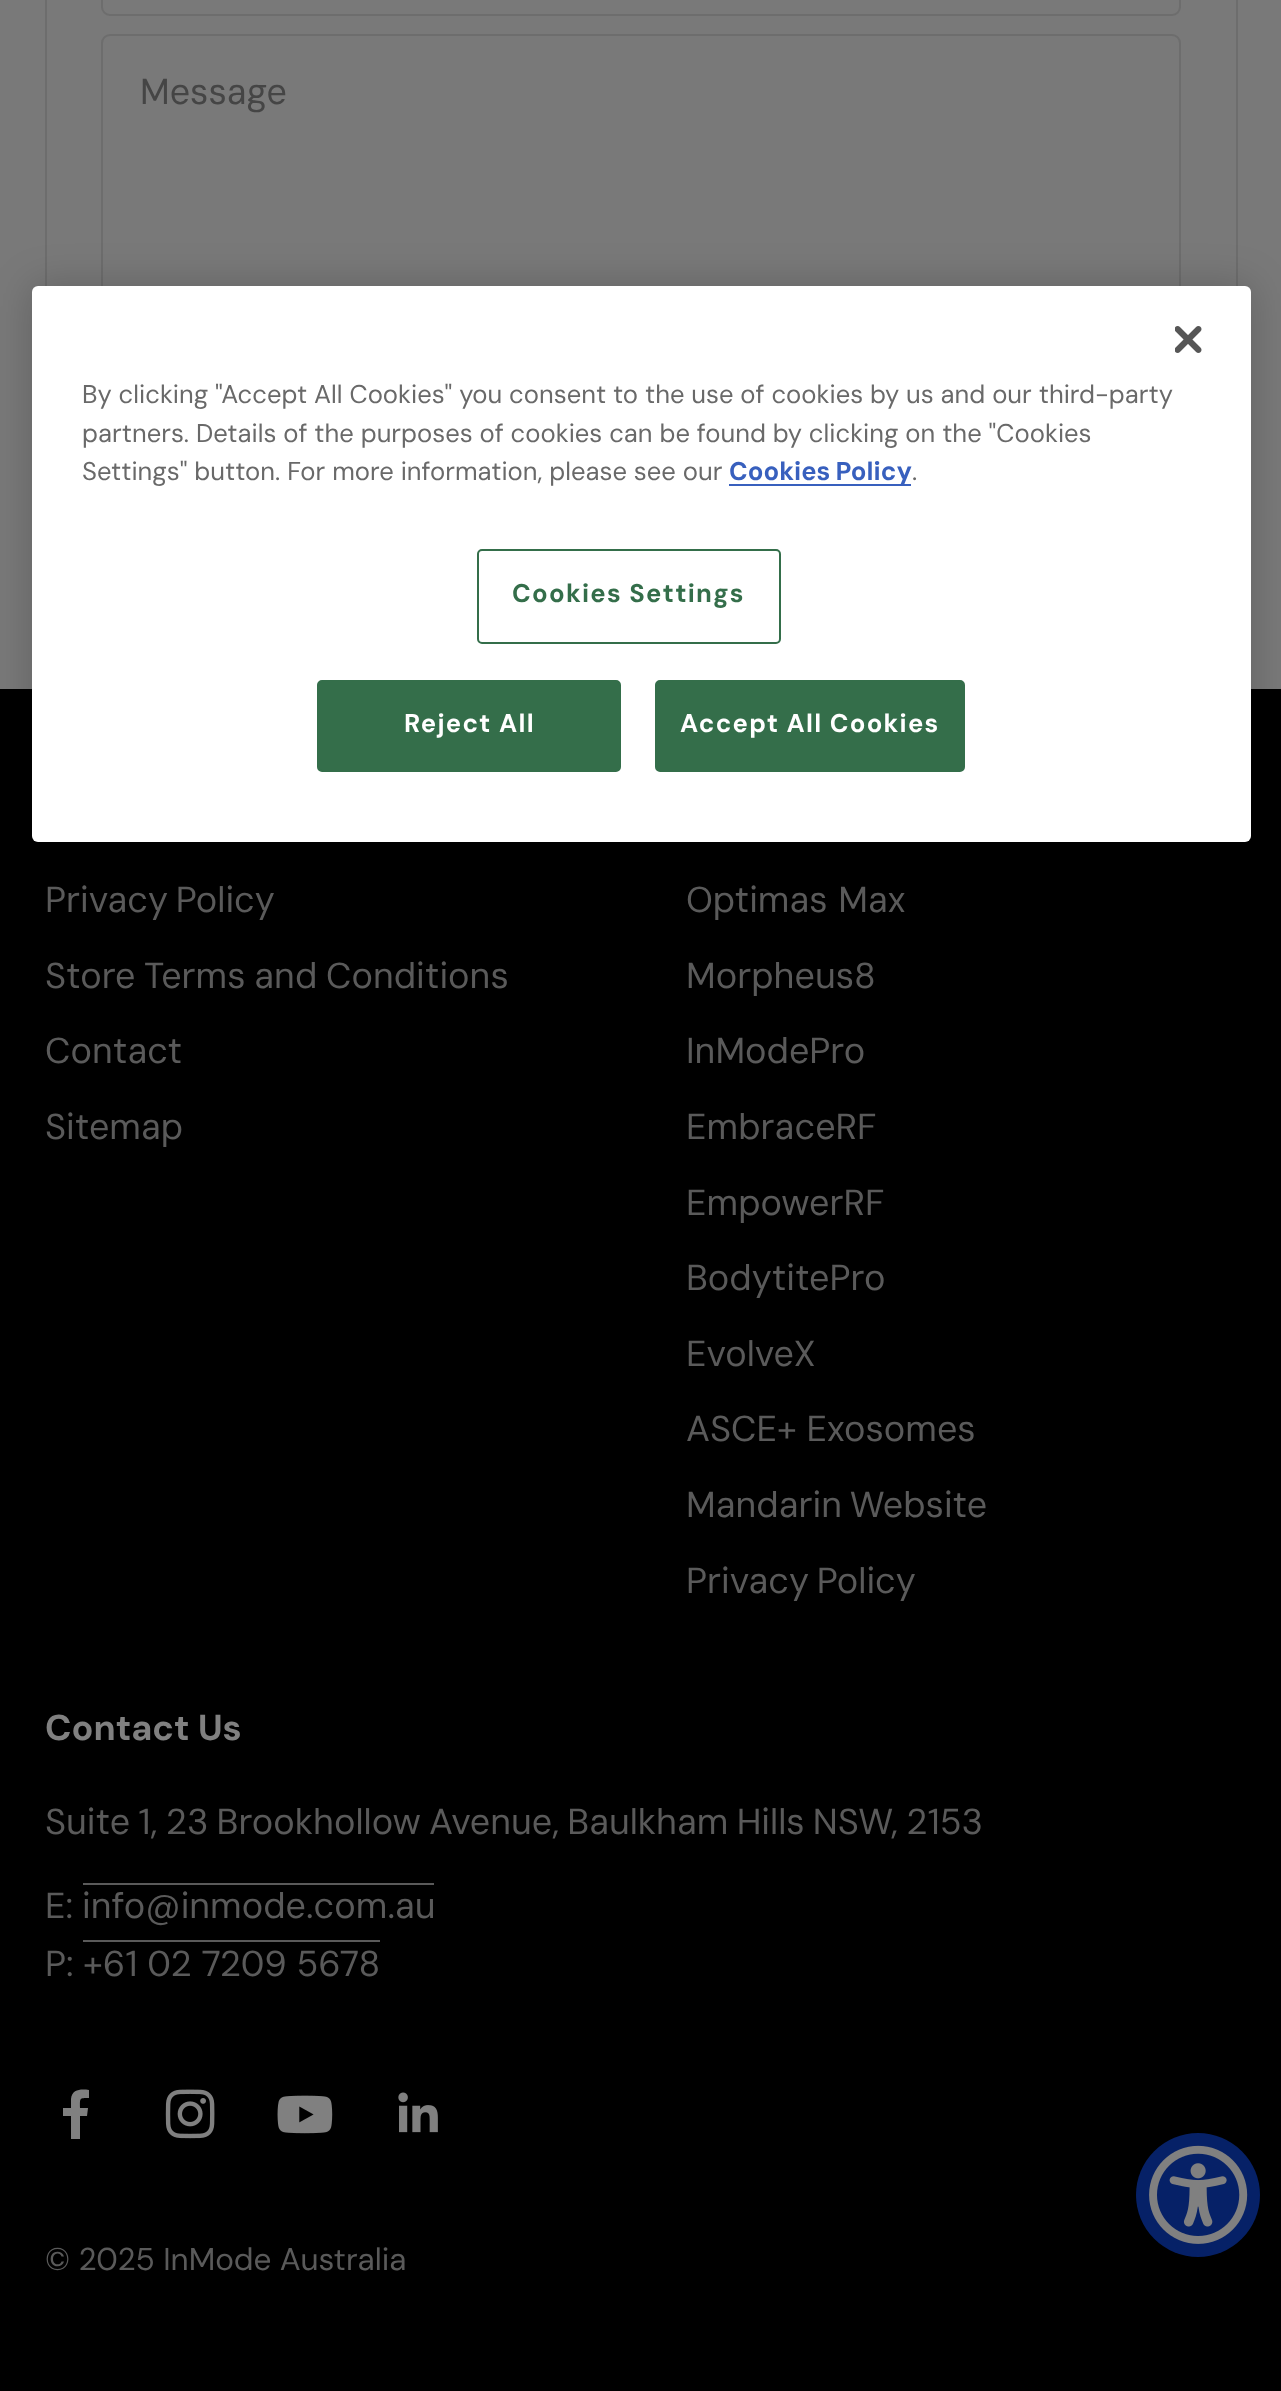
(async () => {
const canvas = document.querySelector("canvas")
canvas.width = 1281
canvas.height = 2391
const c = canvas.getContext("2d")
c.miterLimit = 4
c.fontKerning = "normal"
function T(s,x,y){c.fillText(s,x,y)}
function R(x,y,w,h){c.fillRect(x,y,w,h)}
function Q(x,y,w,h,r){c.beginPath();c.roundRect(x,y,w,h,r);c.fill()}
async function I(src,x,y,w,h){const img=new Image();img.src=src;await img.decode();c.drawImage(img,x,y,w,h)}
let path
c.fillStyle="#797979"
R(0,0,1281,2391)
c.strokeStyle="#6d6d6d"
c.lineWidth=2
c.strokeRect(46,-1,1191,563)
c.beginPath()
c.roundRect(102,-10,1078,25,8)
c.stroke()
c.beginPath()
c.roundRect(102,35,1078,304,8)
c.stroke()
c.font="36px DM Sans"
c.fillStyle="#454545"
T("Message",140,104)
c.fillStyle="#000"
R(0,689,1281,1702)
c.wordSpacing="-2px"
c.fillStyle="#5a5a5a"
T("Privacy Policy",45,912)
c.wordSpacing="-1px"
T("Store Terms and Conditions",45,988)
c.wordSpacing="0px"
T("Contact",45,1063)
T("Sitemap",45,1139)
c.wordSpacing="1px"
T("Optimas Max",686,912)
c.wordSpacing="0px"
T("Morpheus8",686,988)
T("InModePro",686,1063)
T("EmbraceRF",686,1139)
T("EmpowerRF",686,1215)
T("BodytitePro",686,1290)
T("EvolveX",686,1366)
T("ASCE+ Exosomes",686,1441)
c.wordSpacing="-2px"
T("Mandarin Website",686,1517)
T("Privacy Policy",686,1593)
c.wordSpacing="0px"
c.font="bold 36px DM Sans"
c.fillStyle="#808080"
T("Contact Us",45,1740)
c.wordSpacing="-1.5px"
c.font="36px DM Sans"
c.fillStyle="#5a5a5a"
T("Suite 1, 23 Brookhollow Avenue, Baulkham Hills NSW, 2153",45,1834)
c.wordSpacing="0px"
T("E:",45,1918)
T("info@inmode.com.au",82,1918)
R(83,1883,351,2)
T("P:",45,1976)
T("+61 02 7209 5678",83,1976)
R(83,1940,297,2)
c.fillStyle="#808080"
path = new Path2D("M71 2139v-23h-8v-8h8v-9c1-10 10-10 18-9v8c-10 0-9 0-9 10h8l-1 8h-7v23z")
c.fill(path,"evenodd")
await I("1.png",165,2089,50,50)
await I("2.png",277,2095,56,39)
await I("3.png",398,2092,40,41)
c.font="31.5px 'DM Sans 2'"
c.fillStyle="#5a5a5a"
T("© 2025 InMode Australia",45,2270)
c.fillStyle="#00000033"
c.filter="blur(20px)"
c.beginPath()
c.roundRect(32,286,1219,556,6)
c.fill()
c.filter="none"
c.fillStyle="#fff"
Q(32,286,1219,556,6)
await I("4.png",1175,326,27,27)
c.font="25.6px 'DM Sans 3'"
c.fillStyle="#696969"
T("By clicking \"Accept All Cookies\" you consent to the use of cookies by us and our third-party",82,403)
T("partners. Details of the purposes of cookies can be found by clicking on the \"Cookies",82,442)
T("Settings\" button. For more information, please see our",82,480)
c.fillStyle="#3860be"
R(729,484,182,2)
c.wordSpacing="-1px"
c.font="bold 25.6px 'DM Sans 2'"
T("Cookies Policy",729,480)
c.wordSpacing="0px"
c.font="25.6px 'DM Sans 3'"
c.fillStyle="#696969"
T(".",912,480)
c.beginPath()
c.roundRect(478,550,302,93,4)
c.strokeStyle="#346e4a"
c.stroke()
c.letterSpacing="1.25px"
c.font="bold 25.6px 'DM Sans 3'"
c.fillStyle="#346e4a"
T("Cookies Settings",512,602)
c.beginPath()
c.roundRect(318,681,302,90,4)
c.fill()
c.stroke()
c.fillStyle="#fff"
T("Reject All",404,732)
c.fillStyle="#346e4a"
c.beginPath()
c.roundRect(656,681,308,90,4)
c.fill()
c.stroke()
c.fillStyle="#fff"
T("Accept All Cookies",680,732)
c.fillStyle="#062167"
c.beginPath()
c.arc(1198,2195,62,0,7)
c.fill()
await I("5.png",1149,2145,99,99)
})()
